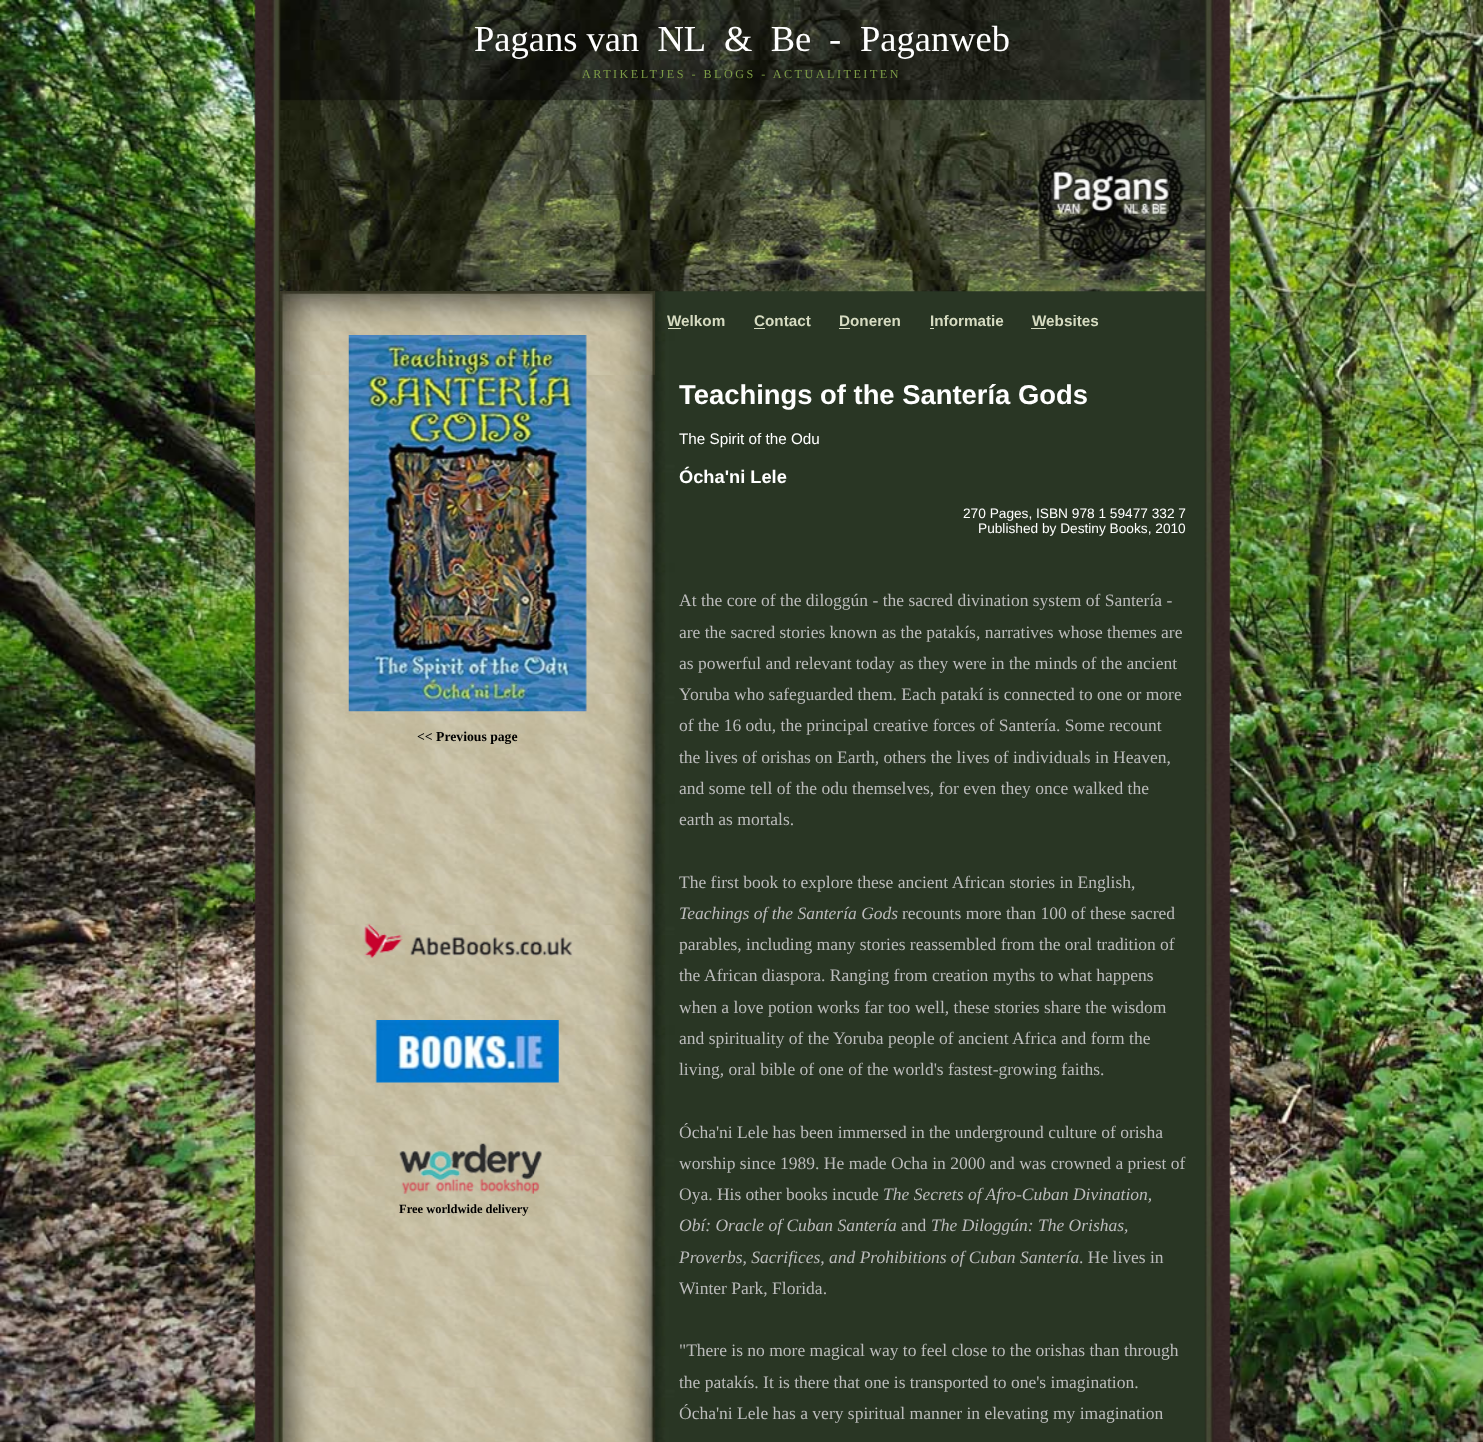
(async () => {
const canvas = document.querySelector("canvas")
canvas.width = 1483
canvas.height = 1442
const c = canvas.getContext("2d")
c.miterLimit = 4
c.fontKerning = "normal"
function T(s,x,y){c.fillText(s,x,y)}
function R(x,y,w,h){c.fillRect(x,y,w,h)}
async function I(src,x,y,w,h){const img=new Image();img.src=src;await img.decode();c.drawImage(img,x,y,w,h)}
c.fillStyle="#fff"
R(0,0,1483,1442)
await I("1.png",0,0,1483,1442)
await I("2.png",254,0,977,1442)
await I("3.png",279,0,927,292)
c.font="36.5px Liberation Serif"
T("Pagans van  NL",474,51)
T("&  Be",724,51)
T("-",829,51)
T("Paganweb",860,51)
c.letterSpacing="2.5px"
c.font="12.15px Liberation Serif"
c.fillStyle="#7c9b46"
T("ARTIKELTJES - BLOGS - ACTUALITEITEN",582,78)
await I("4.png",280,291,375,84)
await I("5.png",348,335,239,377)
c.letterSpacing="0px"
c.font="bold 13.7px Liberation Serif"
c.fillStyle="#000"
T("<< Previous page",417,741)
await I("6.png",364,923,209,36)
await I("7.png",375,1020,184,63)
await I("8.png",399,1143,143,51)
c.font="bold 12.5px Liberation Serif"
T("Free worldwide delivery",399,1213)
c.font="bold 15.25px Liberation Sans"
c.fillStyle="#d6dbc1"
T("Welkom",667,326)
R(668,328,13,1)
T("Contact",754,326)
R(754,328,11,1)
T("Doneren",839,326)
R(839,328,11,1)
T("Informatie",930,326)
R(930,328,4,1)
T("Websites",1032,326)
R(1031,328,15,1)
c.font="bold 27.4px Liberation Sans"
c.fillStyle="#fff"
T("Teachings of the Santería Gods",679,404)
c.font="15.25px Liberation Sans"
T("The Spirit of the Odu",679,444)
c.font="bold 18.25px Liberation Sans"
T("Ócha'ni Lele",679,483)
c.font="13.7px Liberation Sans"
T("270 Pages, ISBN 978 1 59477 332 7",963,518)
T("Published by Destiny Books, 2010",978,533)
c.font="17.5px Liberation Serif"
c.fillStyle="#bbb"
T("At the core of the diloggún - the sacred divination system of Santería -",679,606)
T("are the sacred stories known as the patakís, narratives whose themes are",679,638)
T("as powerful and relevant today as they were in the minds of the ancient",679,669)
T("Yoruba who safeguarded them. Each patakí is connected to one or more",679,700)
T("of the 16 odu, the principal creative forces of Santería. Some recount",679,731)
T("the lives of orishas on Earth, others the lives of individuals in Heaven,",679,763)
T("and some tell of the odu themselves, for even they once walked the",679,794)
T("earth as mortals.",679,825)
T("The first book to explore these ancient African stories in English,",679,888)
c.font="italic 17.5px Liberation Serif"
T("Teachings of the Santería Gods",679,919)
c.font="17.5px Liberation Serif"
T("recounts more than 100 of these sacred",902,919)
T("parables, including many stories reassembled from the oral tradition of",679,950)
T("the",679,981)
T("African diaspora. Ranging from creation myths to what happens",704,981)
T("when a love potion works far too well, these stories share the wisdom",679,1013)
T("and spirituality of the Yoruba people of ancient Africa and form the",679,1044)
T("living, oral bible of one of the world's fastest-growing faiths.",679,1075)
T("Ócha'ni Lele has been immersed in the underground culture of orisha",679,1138)
T("worship since 1989. He made Ocha in 2000 and was crowned a priest of",679,1169)
T("Oya. His other books incude",679,1200)
c.font="italic 17.5px Liberation Serif"
T("The Secrets of Afro-Cuban Divination,",883,1200)
T("Obí: Oracle of Cuban Santería",679,1231)
c.font="17.5px Liberation Serif"
T("and",901,1231)
c.font="italic 17.5px Liberation Serif"
T("The Diloggún: The Orishas,",931,1231)
T("Proverbs, Sacrifices, and Prohibitions of Cuban Santería",679,1263)
c.font="17.5px Liberation Serif"
T(". He lives in",1079,1263)
T("Winter Park, Florida.",679,1294)
T("\"There is no more magical way to feel close to the orishas than through",679,1356)
T("the patakís. It is there that one is transported to one's imagination.",679,1388)
T("Ócha'ni Lele has a very spiritual manner in elevating my imagination",679,1419)
})()
